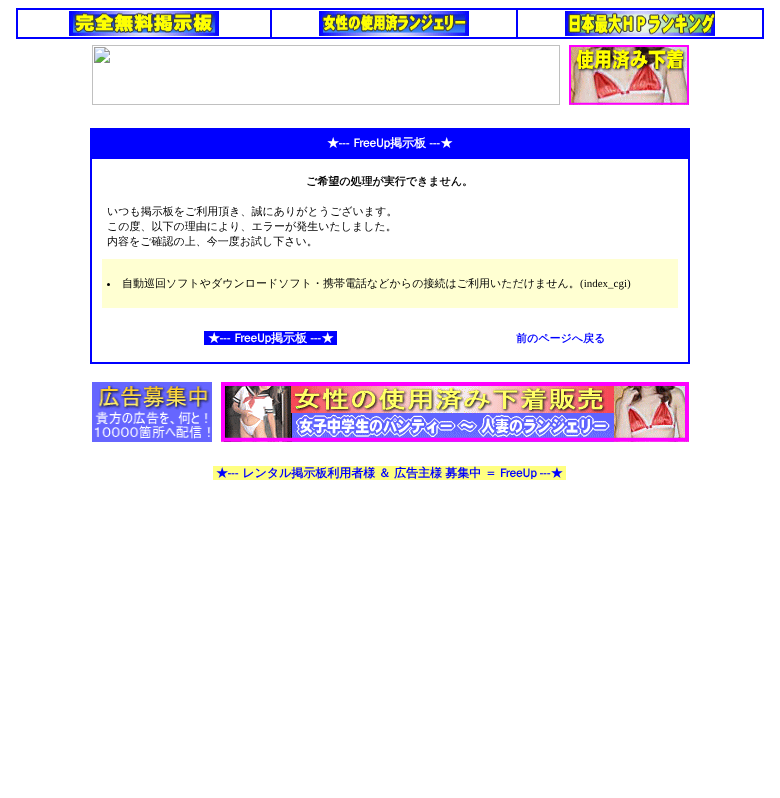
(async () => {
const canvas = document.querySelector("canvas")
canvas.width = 780
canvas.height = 798
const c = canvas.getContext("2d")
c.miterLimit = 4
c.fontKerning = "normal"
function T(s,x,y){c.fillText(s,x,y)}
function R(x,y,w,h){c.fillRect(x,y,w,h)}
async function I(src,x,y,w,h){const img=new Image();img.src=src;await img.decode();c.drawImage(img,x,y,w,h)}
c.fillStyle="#fff"
R(0,0,780,798)
c.strokeStyle="#00f"
c.strokeRect(16.5,8.5,747,30)
c.strokeRect(17.5,9.5,253,28)
await I("1.png",69,11,150,25)
c.strokeRect(271.5,9.5,245,28)
await I("2.png",319,11,150,25)
c.strokeRect(517.5,9.5,245,28)
await I("3.png",565,11,150,25)
await I("4.png",92,45,468,60)
await I("5.png",569,45,120,60)
c.strokeRect(90.5,128.5,599,235)
c.fillStyle="#00f"
R(91,129,598,29)
c.font="bold 12px WenQuanYi Zen Hei"
c.fillStyle="#fff"
T("★--- FreeUp掲示板 ---★",327,147)
c.strokeRect(91.5,158.5,597,204)
c.font="bold 11px WenQuanYi Zen Hei"
c.fillStyle="#000"
T("ご希望の処理が実行できません。",306,185)
c.font="500 11px WenQuanYi Zen Hei"
T("いつも掲示板をご利用頂き、誠にありがとうございます。",107,215)
T("この度、以下の理由により、エラーが発生いたしました。",107,230)
T("内容をご確認の上、今一度お試し下さい。",107,245)
c.fillStyle="#ffffd2"
R(102,259,576,49)
c.fillStyle="#000"
c.beginPath()
c.arc(108.5,284.5,1.5,0,7)
c.fill()
T("自動巡回ソフトやダウンロードソフト・携帯電話などからの接続はご利用いただけません。",122,287)
c.font="11px Liberation Serif"
T("(index_cgi)",580,287)
c.fillStyle="#00f"
R(204,331,133,14)
c.font="bold 12px WenQuanYi Zen Hei"
c.fillStyle="#fff"
T("★--- FreeUp掲示板 ---★",208,342)
c.font="bold 11px WenQuanYi Zen Hei"
c.fillStyle="#00f"
T("前のページへ戻る",516,342)
await I("6.png",92,382,120,60)
await I("7.png",221,382,468,60)
c.fillStyle="#ffff80"
R(213,466,353,14)
c.wordSpacing="-0.25px"
c.font="bold 12px WenQuanYi Zen Hei"
c.fillStyle="#00f"
T("★--- レンタル掲示板利用者様 ＆ 広告主様 募集中 ＝ FreeUp ---★",216,477)
})()
